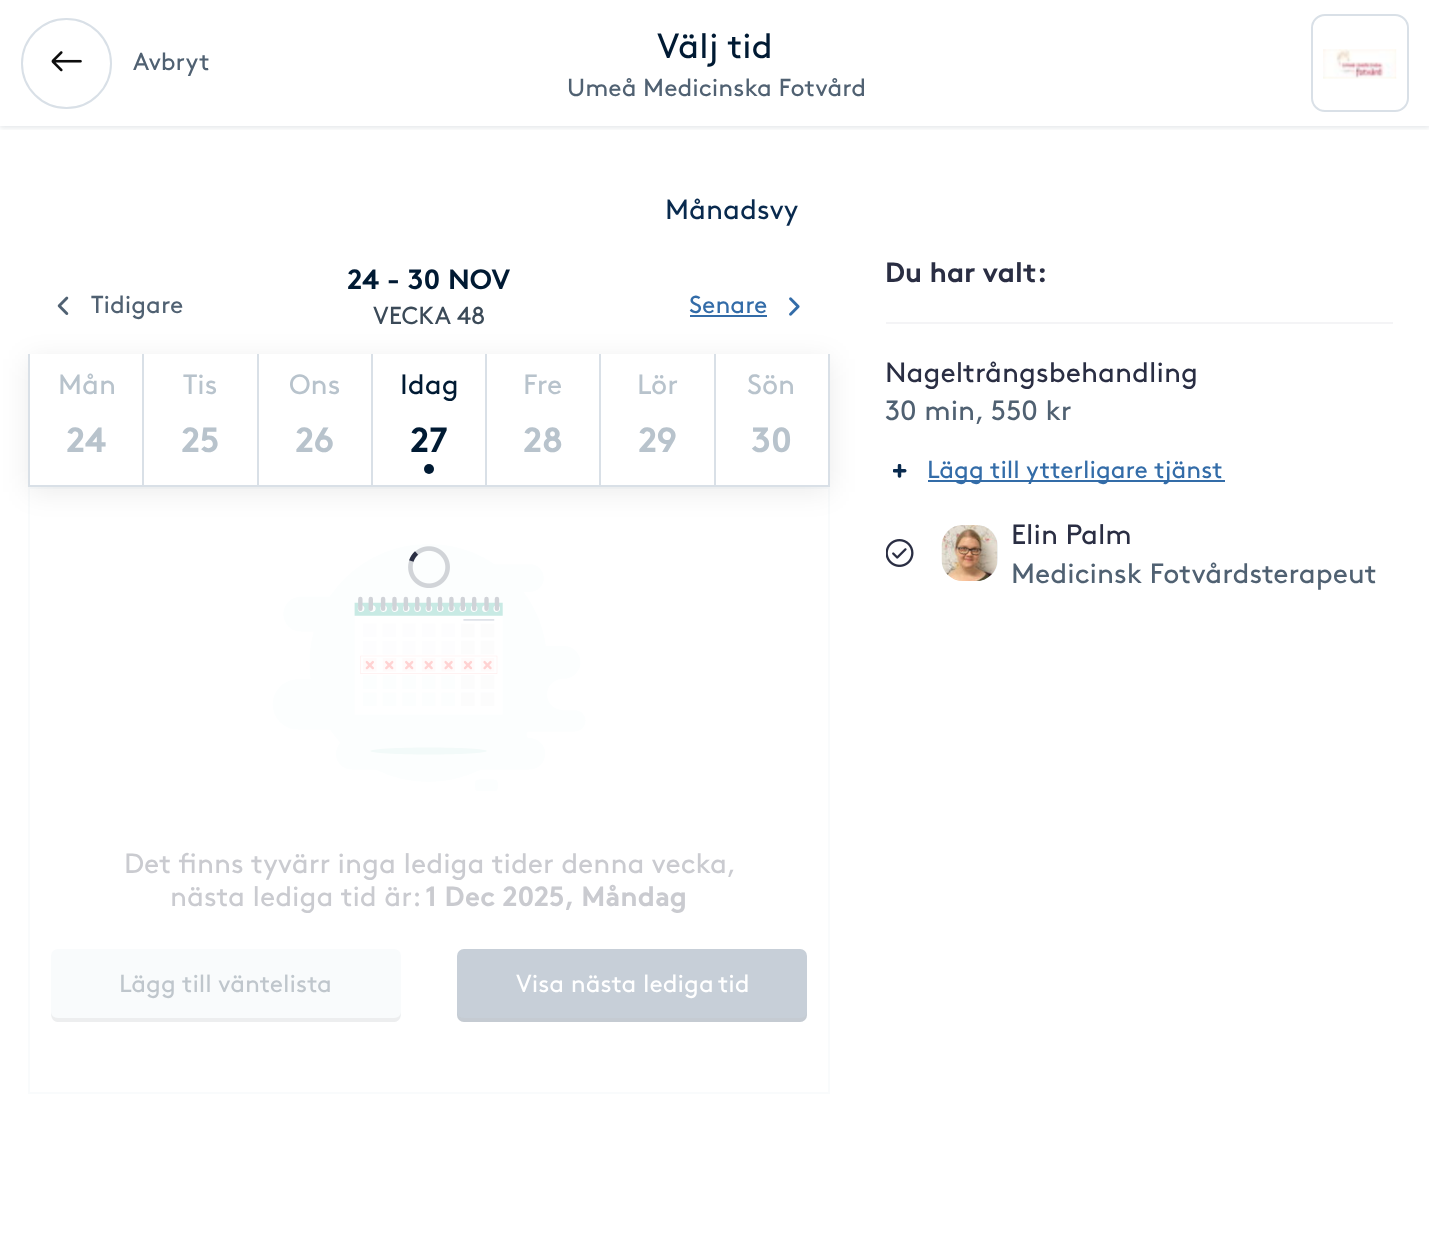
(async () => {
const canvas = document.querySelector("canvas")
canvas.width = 1429
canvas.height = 1240
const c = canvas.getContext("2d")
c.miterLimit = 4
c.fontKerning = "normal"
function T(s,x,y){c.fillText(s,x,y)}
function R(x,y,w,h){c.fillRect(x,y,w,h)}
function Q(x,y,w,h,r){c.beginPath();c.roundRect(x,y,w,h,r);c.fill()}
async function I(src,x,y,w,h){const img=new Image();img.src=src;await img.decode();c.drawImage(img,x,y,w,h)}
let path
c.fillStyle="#fff"
R(0,0,1429,1240)
c.save()
c.beginPath()
c.rect(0,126,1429,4)
c.clip()
c.fillStyle="#001a331a"
c.filter="blur(2.5px)"
c.beginPath()
c.rect(0,2,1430,126)
c.fill()
c.filter="none"
c.restore()
c.beginPath()
c.arc(66.5,63.5,44.5,0,7)
c.strokeStyle="#d9e0e7"
c.lineWidth=2
c.stroke()
await I("1.png",51,51,31,21)
c.font="24.5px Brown"
c.fillStyle="#506172"
T("Avbryt",133,70)
c.font="35px Brown"
c.fillStyle="#001a33"
T("Välj tid",657,58)
c.font="24.5px Brown"
c.fillStyle="#506172"
T("Umeå Medicinska Fotvård",567,96)
c.beginPath()
c.roundRect(1312,15,96,96,13)
c.stroke()
await I("2.png",1323,49,74,30)
c.font="28px Brown"
c.fillStyle="#092a4e"
T("Månadsvy",665,219)
c.font="bold 28px Brown"
c.fillStyle="#001a33"
T("24 - 30 NOV",347,289)
c.font="24.5px Brown"
c.fillStyle="#3b4a58"
T("VECKA 48",373,324)
c.strokeStyle="#f9fbfc"
c.strokeRect(29,488,800,605)
c.fillStyle="#00000014"
c.filter="blur(14px)"
c.beginPath()
c.rect(28,359,802,133)
c.fill()
c.filter="none"
c.fillStyle="#fff"
R(30,354,798,131)
await I("3.png",57,296,12,19)
c.fillStyle="#506172"
T("Tidigare",91,313)
c.fillStyle="#336ca8"
T("Senare",689,313)
R(690,315,77,2)
await I("4.png",789,297,11,19)
c.fillStyle="#d9e0e7"
R(28,485,686,2)
R(28,354,2,133)
c.font="28px Brown"
c.fillStyle="#b8c3cc"
T("Mån",58,394)
c.font="bold 35px Brown"
T("24",66,452)
c.fillStyle="#d9e0e7"
R(142,354,2,133)
c.font="28px Brown"
c.fillStyle="#b8c3cc"
T("Tis",183,394)
c.font="bold 35px Brown"
T("25",181,452)
c.fillStyle="#d9e0e7"
R(257,354,2,133)
c.font="28px Brown"
c.fillStyle="#b8c3cc"
T("Ons",289,394)
c.font="bold 35px Brown"
T("26",295,452)
c.fillStyle="#d9e0e7"
R(371,354,2,133)
c.font="28px Brown"
c.fillStyle="#001a33"
T("Idag",400,394)
c.font="bold 35px Brown"
T("27",410,452)
c.beginPath()
c.arc(429,469,5,0,7)
c.fill()
c.fillStyle="#d9e0e7"
R(485,354,2,133)
c.font="28px Brown"
c.fillStyle="#b8c3cc"
T("Fre",523,394)
c.font="bold 35px Brown"
T("28",523,452)
c.fillStyle="#d9e0e7"
R(599,354,2,133)
c.font="28px Brown"
c.fillStyle="#b8c3cc"
T("Lör",637,394)
c.font="bold 35px Brown"
T("29",638,452)
c.fillStyle="#d9e0e7"
R(828,354,2,133)
R(714,485,116,2)
R(714,354,2,133)
c.font="28px Brown"
c.fillStyle="#b8c3cc"
T("Sön",747,394)
c.font="bold 35px Brown"
T("30",751,452)
await I("6.png",272,544,314,247)
await I("5.png",408,546,42,42)
c.font="28px Brown"
c.fillStyle="#cacbd0"
T("Det finns tyvärr inga lediga tider denna vecka,",124,873)
T("nästa lediga tid är:",170,906)
c.font="bold 28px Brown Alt"
T("1 Dec 2025, Måndag",425,906)
c.fillStyle="#f9fbfc"
Q(51,949,350,73,7)
c.fillStyle="#bfbfbf33"
path = new Path2D("M51 1012c0 4 1 9 6 10h338c5-1 6-6 6-10c0 3-3 6-7 6h-336c-4 0-7-3-7-6z")
c.fill(path)
c.font="24.5px Brown"
c.fillStyle="#bfc6cc"
T("Lägg till väntelista",119,992)
c.fillStyle="#c7cfd8"
Q(457,949,350,73,7)
c.fillStyle="#bfbfbf33"
path = new Path2D("M457 1012c0 4 1 9 6 10h338c5-1 6-6 6-10c0 3-3 6-7 6h-336c-4 0-7-3-7-6z")
c.fill(path)
c.fillStyle="#fff"
T("Visa nästa lediga",516,992)
T("tid",718,992)
c.fillStyle="#f4f4f6"
R(886,322,507,2)
c.font="bold 28px Brown"
c.fillStyle="#2a2e43"
T("Du har valt:",885,282)
c.font="28px Brown"
T("Nageltrångsbehandling",885,382)
c.fillStyle="#506172"
T("30 min, 550 kr",885,420)
await I("7.png",893,464,14,14)
c.fillStyle="#336ca8"
R(928,480,297,2)
c.font="24.5px Brown"
T("Lägg till ytterligare tjänst",927,478)
await I("8.png",886,539,28,28)
c.fillStyle="#f2f7fa"
Q(942,525,56,56,21)
await I("9.png",941,525,57,56)
c.font="28px Brown"
c.fillStyle="#2a2e43"
T("Elin Palm",1011,544)
c.fillStyle="#506172"
T("Medicinsk Fotvårdsterapeut",1011,583)
})()
